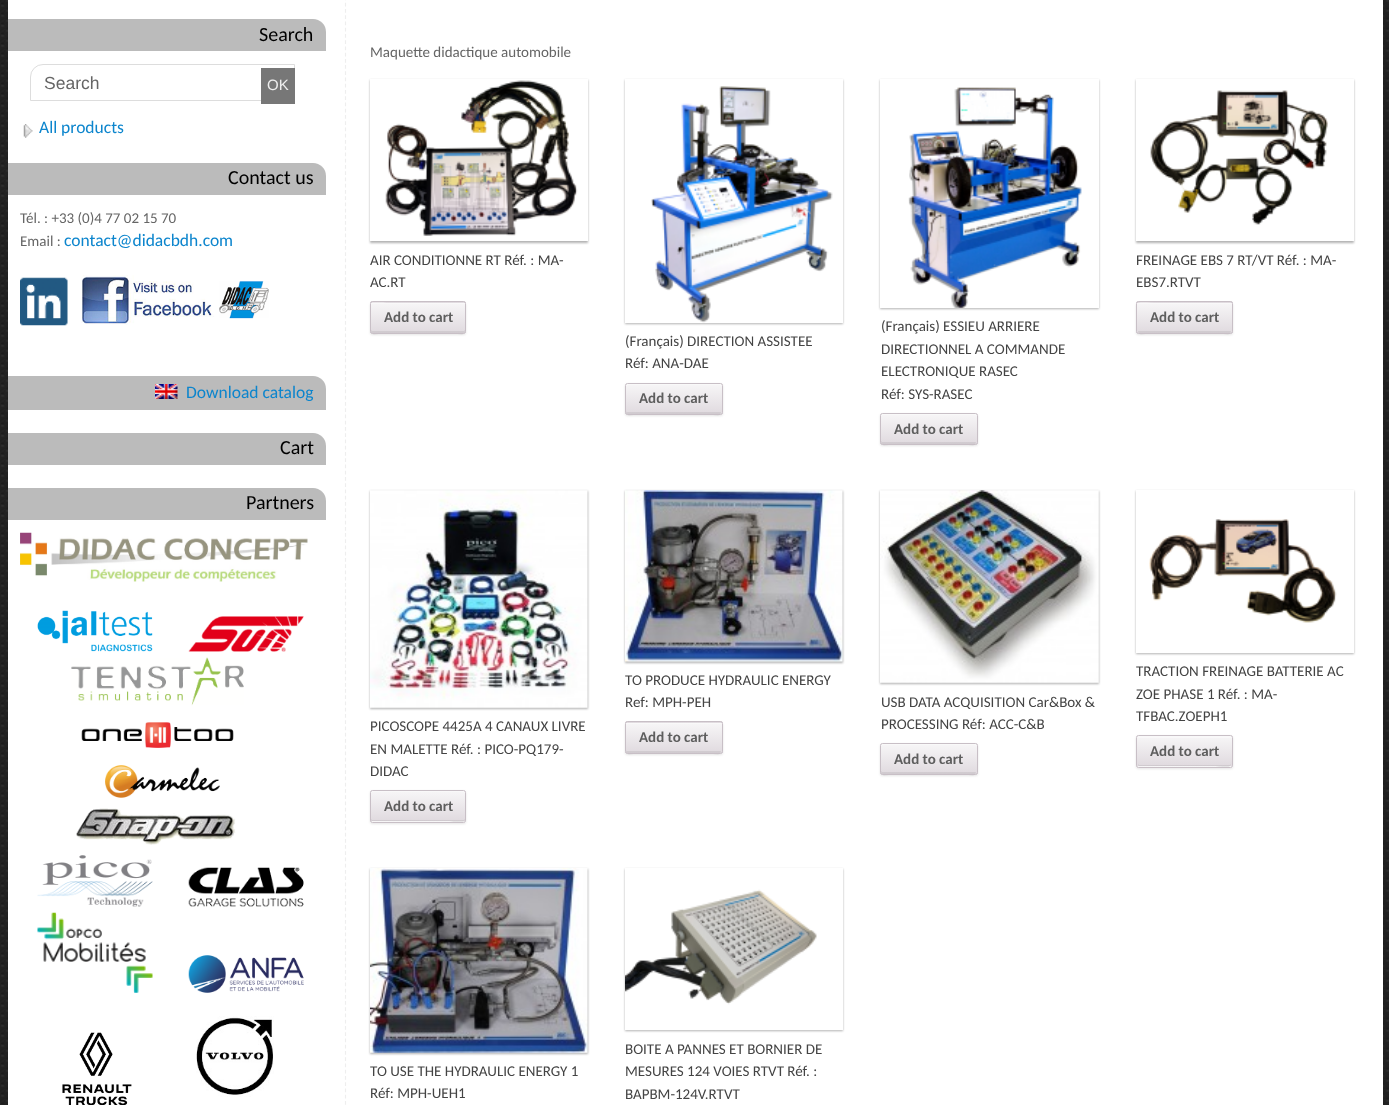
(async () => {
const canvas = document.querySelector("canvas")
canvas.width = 1389
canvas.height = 1105
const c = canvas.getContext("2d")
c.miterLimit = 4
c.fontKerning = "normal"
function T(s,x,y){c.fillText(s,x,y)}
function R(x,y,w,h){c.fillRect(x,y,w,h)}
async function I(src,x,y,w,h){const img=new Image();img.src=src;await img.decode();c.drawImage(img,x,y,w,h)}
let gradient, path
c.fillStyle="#fff"
R(0,0,1389,1105)
await I("1.png",0,0,1389,1105)
R(8,0,1375,1105)
path = new Path2D("M345.5-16v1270")
c.strokeStyle="#eee"
c.lineWidth=1.2
c.setLineDash([3.75,2.49])
c.stroke(path)
c.fillStyle="#bbb"
c.beginPath()
c.roundRect(8,19,318,32,[0,13,0,0])
c.fill()
c.font="20px Carlito"
c.fillStyle="#000"
T("Search",259,41)
c.beginPath()
c.roundRect(30.5,64.5,264,36,[12.5,0,0,0])
c.strokeStyle="#ddd"
c.lineWidth=1
c.setLineDash([])
c.stroke()
c.font="17.5px Liberation Sans"
c.fillStyle="#666"
T("Search",44,89)
c.fillStyle="#777"
R(261,68,34,36)
c.font="15px Liberation Sans"
c.fillStyle="#eee"
T("OK",267,90)
await I("2.png",23,124,10,14)
c.font="17.5px Carlito"
c.fillStyle="#0c85cd"
T("All products",39,133)
c.fillStyle="#bbb"
c.beginPath()
c.roundRect(8,163,318,32,[0,13,0,0])
c.fill()
c.font="20px Carlito"
c.fillStyle="#000"
T("Contact us",228,184)
c.font="15px Carlito"
c.fillStyle="#666"
T("Tél. : +33 (0)4 77 02 15 70",20,223)
T("Email :",20,246)
c.font="17.5px Carlito"
c.fillStyle="#0c85cd"
T("contact@didacbdh.com",64,246)
await I("3.png",20,277,48,49)
await I("4.png",81,275,188,50)
c.fillStyle="#bbb"
c.beginPath()
c.roundRect(8,376,318,34,[0,13,0,0])
c.fill()
await I("5.png",155,384,23,15)
c.fillStyle="#0c85cd"
T("Download catalog",186,398)
c.fillStyle="#bbb"
c.beginPath()
c.roundRect(8,433,318,32,[0,13,0,0])
c.fill()
c.font="20px Carlito"
c.fillStyle="#000"
T("Cart",280,454)
c.fillStyle="#bbb"
c.beginPath()
c.roundRect(8,488,318,32,[0,13,0,0])
c.fill()
c.fillStyle="#000"
T("Partners",246,509)
await I("6.png",20,532,288,50)
await I("7.png",37,610,116,42)
await I("8.png",188,616,116,36)
await I("9.png",71,657,173,49)
await I("10.png",81,722,153,26)
await I("11.png",105,765,115,33)
await I("12.png",76,808,160,37)
await I("13.png",37,855,116,52)
await I("14.png",188,867,116,40)
await I("15.png",37,912,116,81)
await I("16.png",188,955,116,38)
await I("17.png",62,1032,70,73)
await I("18.png",196,1016,78,81)
c.font="15px Carlito"
c.fillStyle="#666"
T("Maquette didactique automobile",370,57)
c.save()
path = new Path2D("M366 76h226v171h-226zm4 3h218v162h-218z")
c.clip(path,"evenodd")
c.fillStyle="#0000004d"
c.filter="blur(1px)"
c.beginPath()
c.rect(370,80,218,163)
c.fill()
c.filter="none"
c.restore()
await I("19.png",385,80,193,156)
c.fillStyle="#444"
T("AIR CONDITIONNE RT Réf. : MA-",370,265)
T("AC.RT",370,287)
c.fillStyle="#0000001a"
c.filter="blur(1px)"
c.beginPath()
c.roundRect(370,303,96,32,2.5)
c.fill()
c.filter="none"
c.save()
c.beginPath()
c.roundRect(370,301,96,33,2.5)
c.clip()
gradient = c.createLinearGradient(418,273,418,303)
gradient.addColorStop(0,"#f7f6f7")
gradient.addColorStop(1,"#e0dadf")
c.fillStyle = gradient
R(370,301,96,2)
c.restore()
gradient = c.createLinearGradient(418,303,418,333)
gradient.addColorStop(0,"#f7f6f7")
gradient.addColorStop(1,"#e0dadf")
c.fillStyle = gradient
R(370,303,96,30)
c.fillStyle="#ffffff4d"
path = new Path2D("M372 304h92l1 1c0-1 0-2-1-2h-77c-1 0-16-5-16 2z")
c.fill(path)
c.fillStyle="#00000012"
path = new Path2D("M371 330c0 8 7 3 16 3h62c9 0 16 5 16-3l-1 1h-92z")
c.fill(path)
c.beginPath()
c.roundRect(370.5,301.5,95,32,2)
c.strokeStyle="#c8bfc6"
c.stroke()
c.font="bold 15px Carlito"
c.fillStyle="#5e5e5e"
T("Add to cart",384,322)
c.save()
path = new Path2D("M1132 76h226v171h-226zm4 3h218v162h-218z")
c.clip(path,"evenodd")
c.fillStyle="#0000004d"
c.filter="blur(1px)"
c.beginPath()
c.rect(1136,80,218,163)
c.fill()
c.filter="none"
c.restore()
await I("20.png",1150,90,178,135)
c.font="15px Carlito"
c.fillStyle="#444"
T("FREINAGE EBS 7 RT/VT Réf. : MA-",1136,265)
T("EBS7.RTVT",1136,287)
c.fillStyle="#0000001a"
c.filter="blur(1px)"
c.beginPath()
c.roundRect(1136,303,97,32,2.5)
c.fill()
c.filter="none"
c.save()
c.beginPath()
c.roundRect(1136,301,97,33,2.5)
c.clip()
gradient = c.createLinearGradient(1184,273,1184,303)
gradient.addColorStop(0,"#f7f6f7")
gradient.addColorStop(1,"#e0dadf")
c.fillStyle = gradient
R(1136,301,97,2)
c.restore()
gradient = c.createLinearGradient(1184,303,1184,333)
gradient.addColorStop(0,"#f7f6f7")
gradient.addColorStop(1,"#e0dadf")
c.fillStyle = gradient
R(1136,303,97,30)
c.fillStyle="#ffffff4d"
path = new Path2D("M1139 304h91c1 0 1 0 1 1c0-1 0-2-1-2h-76c-2 0-16-4-16 2c0-1 0-1 1-1z")
c.fill(path)
c.fillStyle="#00000012"
path = new Path2D("M1138 330c0 8 7 3 16 3h61c9 0 16 5 16-3c0 1 0 1-1 1h-91c-1 0-1 0-1-1z")
c.fill(path)
c.beginPath()
c.roundRect(1136.5,301.5,96,32,2)
c.stroke()
c.font="bold 15px Carlito"
c.fillStyle="#5e5e5e"
T("Add to cart",1150,322)
c.save()
path = new Path2D("M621 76h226v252h-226zm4 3h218v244h-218z")
c.clip(path,"evenodd")
c.fillStyle="#0000004d"
c.filter="blur(1px)"
c.beginPath()
c.rect(625,80,218,244)
c.fill()
c.filter="none"
c.restore()
await I("21.png",651,86,182,237)
c.font="15px Carlito"
c.fillStyle="#444"
T("(Français) DIRECTION ASSISTEE",625,346)
T("Réf: ANA-DAE",625,368)
c.fillStyle="#0000001a"
c.filter="blur(1px)"
c.beginPath()
c.roundRect(625,384,98,32,2.5)
c.fill()
c.filter="none"
c.save()
c.beginPath()
c.roundRect(625,383,98,32,2.5)
c.clip()
gradient = c.createLinearGradient(674,384,674,414)
gradient.addColorStop(0,"#f7f6f7")
gradient.addColorStop(1,"#e0dadf")
c.fillStyle = gradient
R(625,384,98,30)
c.restore()
c.fillStyle="#f9f9f9"
path = new Path2D("M628 385h92l1 1c0-1 0-2-1-2h-93l-1 2z")
c.fill(path)
c.fillStyle="#00000012"
path = new Path2D("M626 411c0 8 7 3 16 3h62c10 0 17 5 17-3c0 1 0 1-1 1h-92c-1 0-2 0-2-1z")
c.fill(path)
c.beginPath()
c.roundRect(625.5,383.5,97,31,2)
c.stroke()
c.font="bold 15px Carlito"
c.fillStyle="#5e5e5e"
T("Add to cart",639,403)
c.save()
path = new Path2D("M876 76h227v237h-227zm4 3h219v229h-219z")
c.clip(path,"evenodd")
c.fillStyle="#0000004d"
c.filter="blur(1px)"
c.beginPath()
c.rect(880,80,219,229)
c.fill()
c.filter="none"
c.restore()
await I("22.png",908,87,174,221)
c.font="15px Carlito"
c.fillStyle="#444"
T("(Français) ESSIEU ARRIERE",881,331)
T("DIRECTIONNEL A COMMANDE",881,354)
T("ELECTRONIQUE RASEC",881,376)
T("Réf: SYS-RASEC",881,399)
c.fillStyle="#0000001a"
c.filter="blur(1px)"
c.beginPath()
c.roundRect(880,414,98,32,2.5)
c.fill()
c.filter="none"
c.save()
c.beginPath()
c.roundRect(880,413,98,32,2.5)
c.clip()
gradient = c.createLinearGradient(929,414,929,444)
gradient.addColorStop(0,"#f7f6f7")
gradient.addColorStop(1,"#e0dadf")
c.fillStyle = gradient
R(880,414,98,30)
c.restore()
c.fillStyle="#f9f9f9"
path = new Path2D("M882 415h93l1 1c0-1 0-2-1-2h-93l-1 2z")
c.fill(path)
c.fillStyle="#00000012"
path = new Path2D("M881 441c0 8 7 3 17 3h62c9 0 16 5 16-3c0 1 0 1-1 1h-93z")
c.fill(path)
c.beginPath()
c.roundRect(880.5,413.5,97,31,2)
c.stroke()
c.font="bold 15px Carlito"
c.fillStyle="#5e5e5e"
T("Add to cart",894,434)
c.fillStyle="#0000004d"
c.filter="blur(1px)"
c.beginPath()
c.rect(370,491,218,218)
c.fill()
c.filter="none"
await I("23.png",370,490,218,218)
c.font="15px Carlito"
c.fillStyle="#444"
T("PICOSCOPE 4425A 4 CANAUX LIVRE",370,731)
T("EN MALETTE Réf. : PICO-PQ179-",370,754)
T("DIDAC",370,776)
c.fillStyle="#0000001a"
c.filter="blur(1px)"
c.beginPath()
c.roundRect(370,791,96,33,2.5)
c.fill()
c.filter="none"
gradient = c.createLinearGradient(418,791,418,821)
gradient.addColorStop(0,"#f7f6f7")
gradient.addColorStop(1,"#e0dadf")
c.fillStyle = gradient
R(370,791,96,30)
c.save()
c.beginPath()
c.roundRect(370,790,96,33,2.5)
c.clip()
gradient = c.createLinearGradient(418,821,418,851)
gradient.addColorStop(0,"#f7f6f7")
gradient.addColorStop(1,"#e0dadf")
c.fillStyle = gradient
R(370,821,96,2)
c.restore()
c.fillStyle="#ffffff4d"
path = new Path2D("M372 792h92l1 2c0-8-7-3-16-3h-62c-9 0-16-5-16 3z")
c.fill(path)
c.fillStyle="#00000012"
path = new Path2D("M371 819c0 1 0 2 1 2h77c1 0 16 5 16-2l-1 1h-92z")
c.fill(path)
c.beginPath()
c.roundRect(370.5,790.5,95,32,2)
c.stroke()
c.font="bold 15px Carlito"
c.fillStyle="#5e5e5e"
T("Add to cart",384,811)
c.fillStyle="#0000004d"
c.filter="blur(1px)"
c.beginPath()
c.rect(625,491,218,172)
c.fill()
c.filter="none"
await I("24.png",625,490,218,172)
c.font="15px Carlito"
c.fillStyle="#444"
T("TO PRODUCE HYDRAULIC ENERGY",625,685)
T("Ref: MPH-PEH",625,707)
c.fillStyle="#0000001a"
c.filter="blur(1px)"
c.beginPath()
c.roundRect(625,723,98,32,2.5)
c.fill()
c.filter="none"
c.save()
c.beginPath()
c.roundRect(625,721,98,33,2.5)
c.clip()
gradient = c.createLinearGradient(674,693,674,723)
gradient.addColorStop(0,"#f7f6f7")
gradient.addColorStop(1,"#e0dadf")
c.fillStyle = gradient
R(625,721,98,2)
c.restore()
gradient = c.createLinearGradient(674,723,674,753)
gradient.addColorStop(0,"#f7f6f7")
gradient.addColorStop(1,"#e0dadf")
c.fillStyle = gradient
R(625,723,98,30)
c.fillStyle="#f9f9f9"
path = new Path2D("M628 724h92c1 0 1 0 1 1c0-1 0-2-1-2h-93l-1 2c0-1 1-1 2-1z")
c.fill(path)
c.fillStyle="#00000012"
path = new Path2D("M626 750c0 8 7 3 16 3h62c10 0 17 5 17-3c0 1 0 1-1 1h-92c-1 0-2 0-2-1z")
c.fill(path)
c.beginPath()
c.roundRect(625.5,721.5,97,32,2)
c.stroke()
c.font="bold 15px Carlito"
c.fillStyle="#5e5e5e"
T("Add to cart",639,742)
c.fillStyle="#0000004d"
c.filter="blur(1px)"
c.beginPath()
c.rect(880,491,219,193)
c.fill()
c.filter="none"
await I("25.png",880,490,219,193)
c.font="15px Carlito"
c.fillStyle="#444"
T("USB DATA ACQUISITION Car&Box &",881,707)
T("PROCESSING Réf: ACC-C&B",881,729)
c.fillStyle="#0000001a"
c.filter="blur(1px)"
c.beginPath()
c.roundRect(880,744,98,32,2.5)
c.fill()
c.filter="none"
c.save()
c.beginPath()
c.roundRect(880,743,98,32,2.5)
c.clip()
gradient = c.createLinearGradient(929,744,929,774)
gradient.addColorStop(0,"#f7f6f7")
gradient.addColorStop(1,"#e0dadf")
c.fillStyle = gradient
R(880,744,98,30)
c.restore()
c.fillStyle="#f9f9f9"
path = new Path2D("M882 745h93l1 1c0-1 0-2-1-2h-93l-1 2z")
c.fill(path)
c.fillStyle="#00000012"
path = new Path2D("M881 771c0 8 7 3 17 3h62c9 0 16 5 16-3c0 1 0 1-1 1h-93z")
c.fill(path)
c.beginPath()
c.roundRect(880.5,743.5,97,31,2)
c.stroke()
c.font="bold 15px Carlito"
c.fillStyle="#5e5e5e"
T("Add to cart",894,764)
c.save()
path = new Path2D("M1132 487h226v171h-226zm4 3h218v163h-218z")
c.clip(path,"evenodd")
c.fillStyle="#0000004d"
c.filter="blur(1px)"
c.beginPath()
c.rect(1136,491,218,163)
c.fill()
c.filter="none"
c.restore()
await I("26.png",1149,519,188,104)
c.font="15px Carlito"
c.fillStyle="#444"
T("TRACTION FREINAGE BATTERIE AC",1136,676)
T("ZOE PHASE 1 Réf. : MA-",1136,699)
T("TFBAC.ZOEPH1",1136,721)
c.fillStyle="#0000001a"
c.filter="blur(1px)"
c.beginPath()
c.roundRect(1136,736,97,33,2.5)
c.fill()
c.filter="none"
gradient = c.createLinearGradient(1184,736,1184,766)
gradient.addColorStop(0,"#f7f6f7")
gradient.addColorStop(1,"#e0dadf")
c.fillStyle = gradient
R(1136,736,97,30)
c.save()
c.beginPath()
c.roundRect(1136,735,97,33,2.5)
c.clip()
gradient = c.createLinearGradient(1184,766,1184,796)
gradient.addColorStop(0,"#f7f6f7")
gradient.addColorStop(1,"#e0dadf")
c.fillStyle = gradient
R(1136,766,97,2)
c.restore()
c.fillStyle="#ffffff4d"
path = new Path2D("M1139 738h91c1 0 1 0 1 1c0-8-7-3-16-3h-61c-9 0-16-5-16 3c0-1 0-1 1-1z")
c.fill(path)
c.fillStyle="#00000012"
path = new Path2D("M1138 764c0 1 0 2 1 2h76c2 0 16 4 16-2l-1 1h-91z")
c.fill(path)
c.beginPath()
c.roundRect(1136.5,735.5,96,32,2)
c.stroke()
c.font="bold 15px Carlito"
c.fillStyle="#5e5e5e"
T("Add to cart",1150,756)
c.fillStyle="#0000004d"
c.filter="blur(1px)"
c.beginPath()
c.rect(370,869,218,185)
c.fill()
c.filter="none"
await I("27.png",370,868,218,185)
c.font="15px Carlito"
c.fillStyle="#444"
T("TO USE THE HYDRAULIC ENERGY 1",370,1076)
T("Réf: MPH-UEH1",370,1098)
c.save()
path = new Path2D("M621 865h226v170h-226zm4 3h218v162h-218z")
c.clip(path,"evenodd")
c.fillStyle="#0000004d"
c.filter="blur(1px)"
c.beginPath()
c.rect(625,869,218,162)
c.fill()
c.filter="none"
c.restore()
await I("28.png",625,889,192,116)
T("BOITE A PANNES ET BORNIER DE",625,1054)
T("MESURES 124 VOIES RTVT Réf. :",625,1076)
T("BAPBM-124V.RTVT",625,1099)
})()
